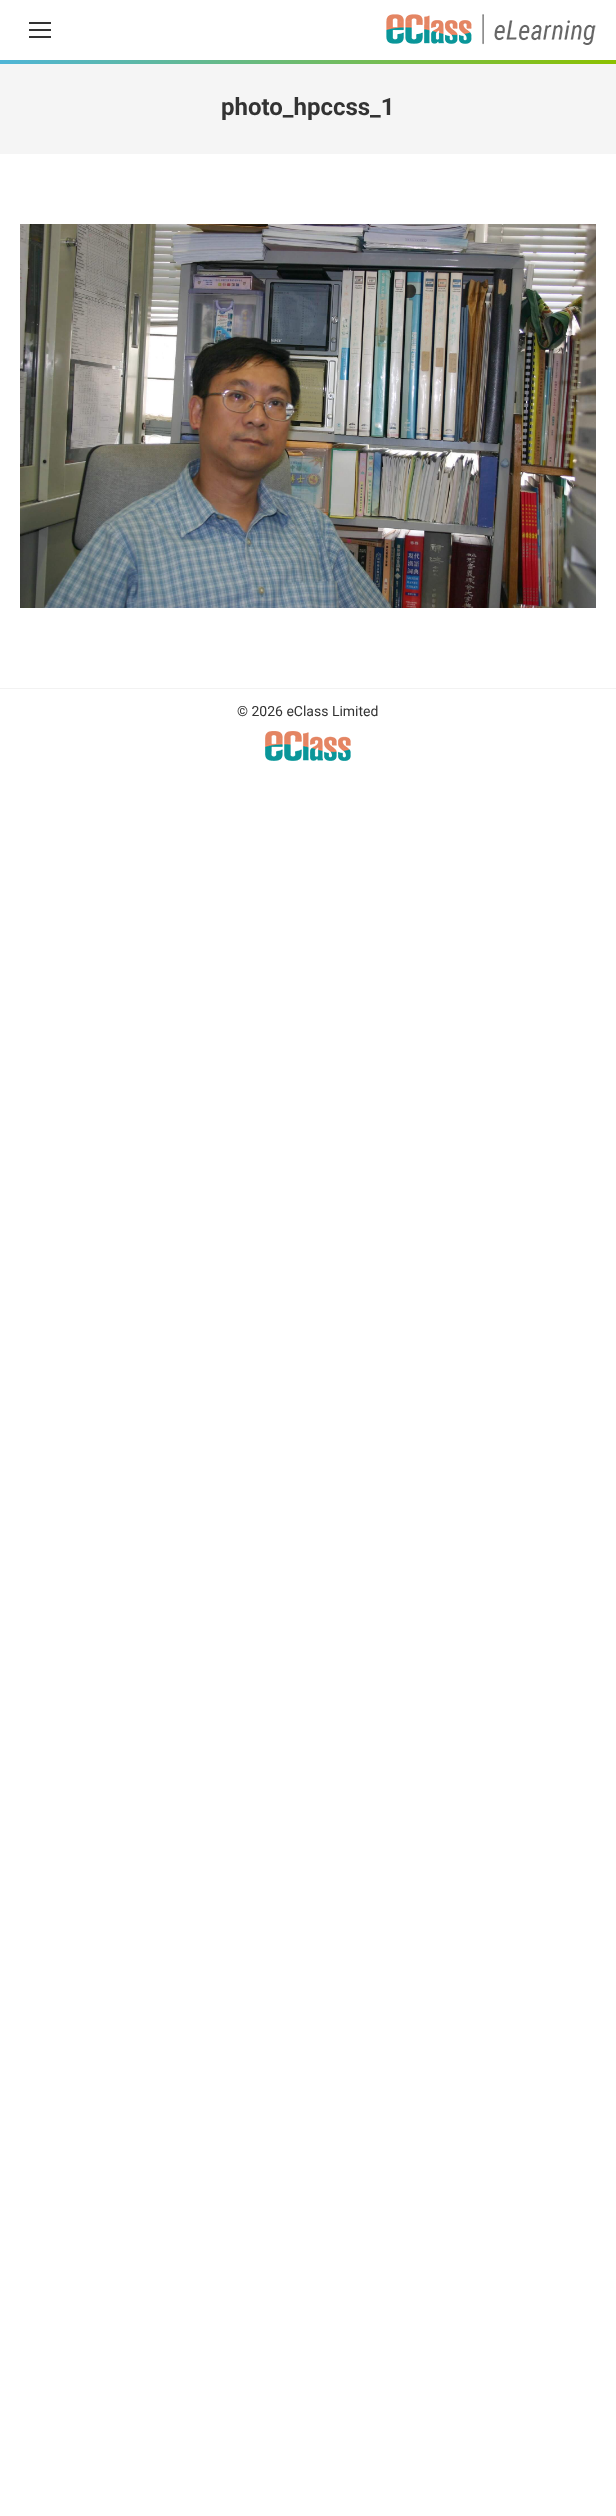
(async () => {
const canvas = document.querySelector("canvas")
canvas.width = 616
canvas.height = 2516
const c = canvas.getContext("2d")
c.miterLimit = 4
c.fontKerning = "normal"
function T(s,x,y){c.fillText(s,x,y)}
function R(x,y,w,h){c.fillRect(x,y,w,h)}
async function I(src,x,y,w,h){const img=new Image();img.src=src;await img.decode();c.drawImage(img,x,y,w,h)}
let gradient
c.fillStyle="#fff"
R(0,0,616,2516)
c.fillStyle="#333"
R(29,22,22,2)
R(29,29,22,2)
R(29,36,22,2)
await I("1.png",386,14,210,31)
gradient = c.createLinearGradient(0,62,616,62)
gradient.addColorStop(0,"#4fb5d7")
gradient.addColorStop(1,"#8cc100")
c.fillStyle = gradient
R(0,60,616,4)
c.fillStyle="#f5f5f5"
R(0,64,616,90)
c.font="bold 24px Roboto"
c.fillStyle="#333"
T("photo_hpccss_1",221,115)
await I("2.png",20,224,576,384)
c.fillStyle="#f2f2f2"
R(0,688,616,1)
c.font="14px Roboto"
c.fillStyle="#333"
T("© 2026 eClass Limited",237,716)
await I("3.png",265,731,86,30)
})()
